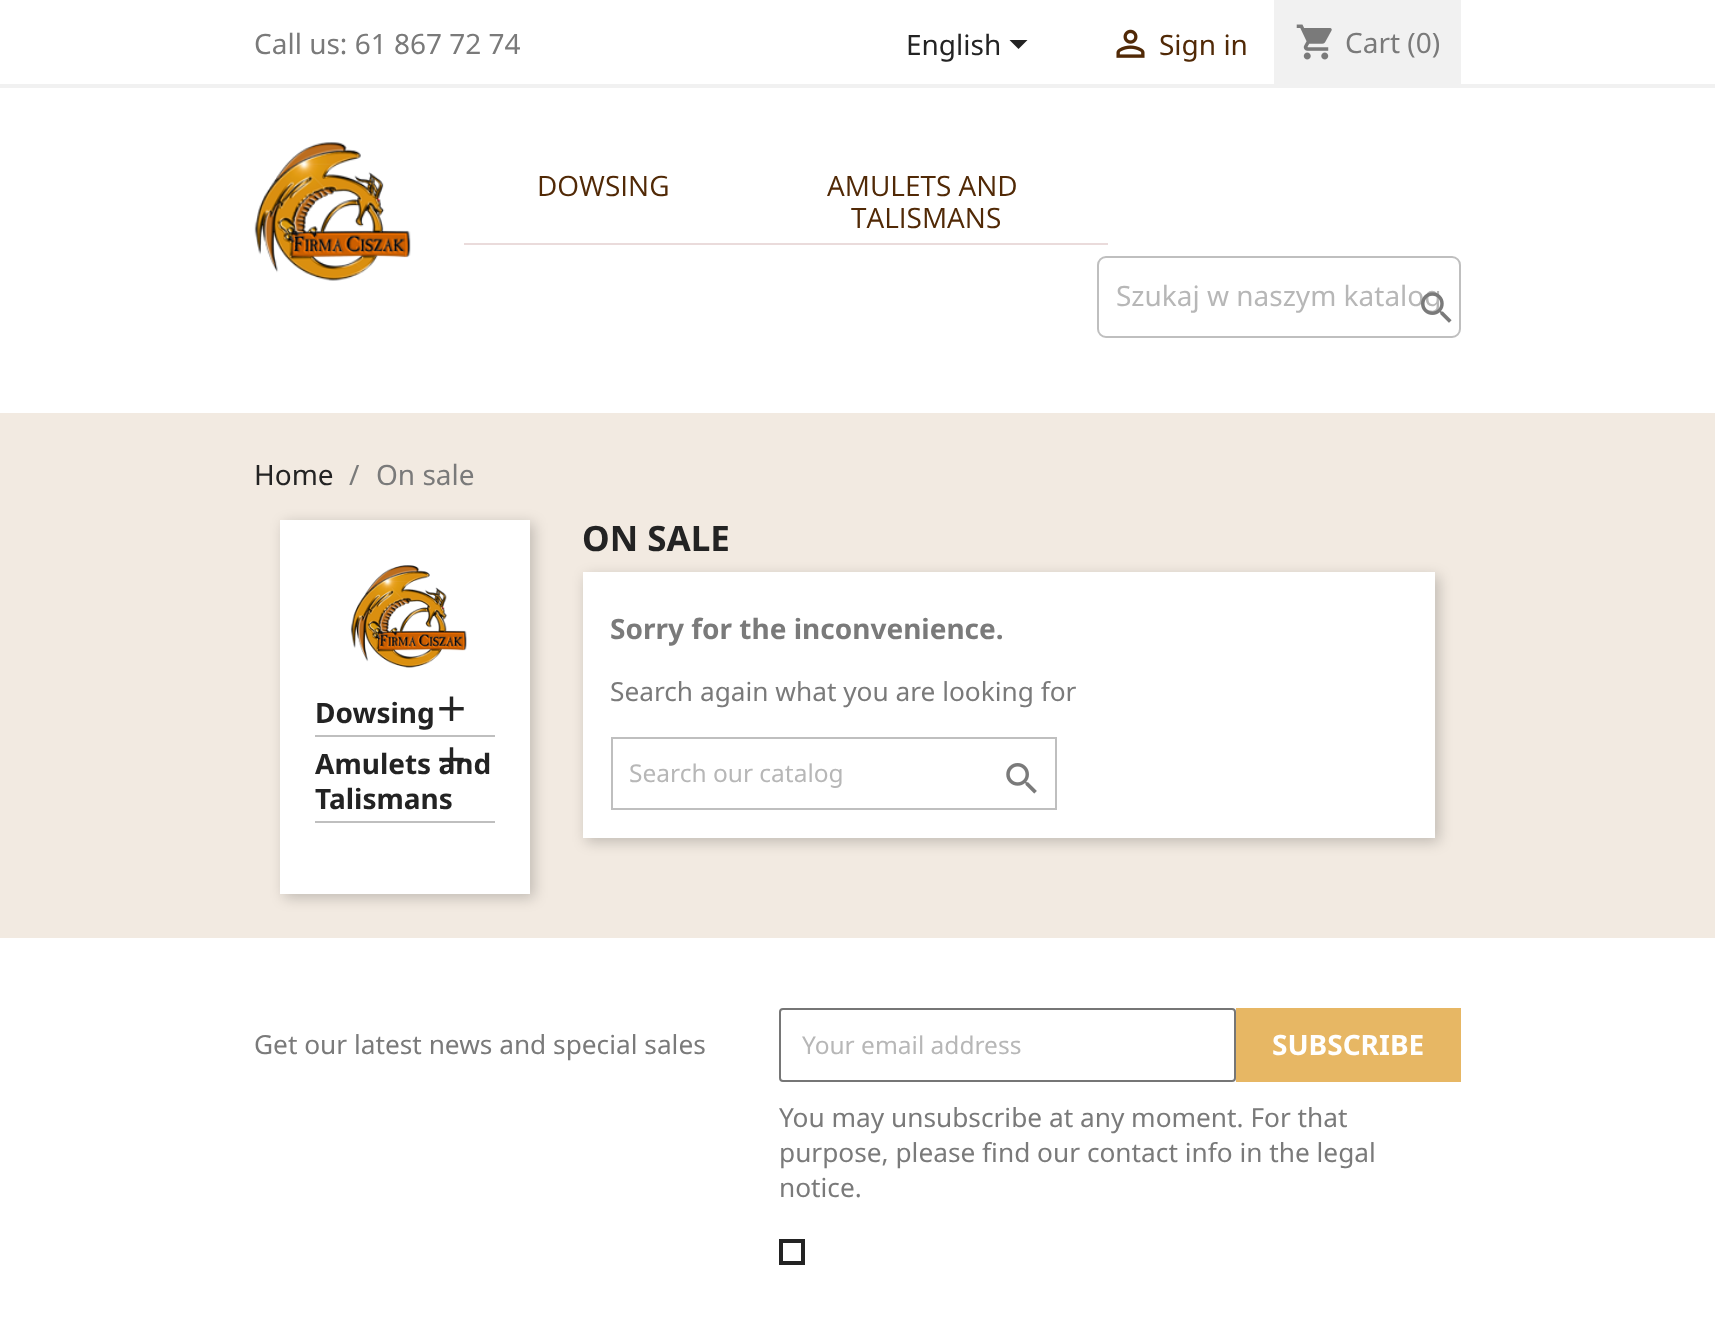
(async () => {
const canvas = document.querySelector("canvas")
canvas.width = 1715
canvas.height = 1337
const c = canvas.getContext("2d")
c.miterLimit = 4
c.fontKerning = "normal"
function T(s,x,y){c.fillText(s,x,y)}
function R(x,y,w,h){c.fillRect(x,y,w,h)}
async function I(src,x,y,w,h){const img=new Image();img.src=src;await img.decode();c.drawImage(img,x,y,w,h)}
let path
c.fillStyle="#fff"
R(0,0,1715,1337)
c.fillStyle="#f1f1f1"
R(0,84,1715,4)
c.font="28px Noto Sans"
c.fillStyle="#7a7a7a"
T("Call us: 61 867 72 74",254,54)
c.fillStyle="#232323"
T("English",906,55)
path = new Path2D("M1009.5 40h18l-9 9z")
c.fill(path)
await I("1.png",1116,29,29,29)
c.fillStyle="#512906"
T("Sign in",1159,55)
c.fillStyle="#f1f1f1"
R(1274,0,187,84)
await I("2.png",1296,24,36,36)
c.fillStyle="#7a7a7a"
T("Cart (0)",1345,53)
await I("3.png",254,142,157,139)
c.fillStyle="#eadbdb"
R(464,243,644,2)
c.font="28px Open Sans"
c.fillStyle="#512906"
T("DOWSING",537,196)
T("AMULETS AND",827,196)
T("TALISMANS",851,228)
c.beginPath()
c.roundRect(1098,257,362,80,8)
c.strokeStyle="#bfbfbf"
c.lineWidth=2
c.stroke()
c.font="28px Noto Sans"
c.fillStyle="#b7b7b7"
T("Szukaj w naszym katalog",1116,306)
await I("4.png",1421,292,31,31)
c.fillStyle="#f2eae1"
R(0,413,1715,525)
c.fillStyle="#232323"
T("Home",254,485)
c.fillStyle="#7a7a7a"
T("/",349,485)
T("On sale",376,485)
c.fillStyle="#00000033"
c.filter="blur(7px)"
c.beginPath()
c.rect(284,523,250,375)
c.fill()
c.filter="none"
c.fillStyle="#fff"
R(280,520,250,374)
await I("5.png",350,565,117,103)
c.fillStyle="#bfbfbf"
R(315,735,180,2)
c.font="bold 28px Noto Sans"
c.fillStyle="#232323"
T("Dowsing",315,723)
await I("6.png",439,696,25,25)
T("Amulets and",315,774)
await I("7.png",439,747,25,25)
c.fillStyle="#bfbfbf"
R(315,821,180,2)
c.fillStyle="#232323"
T("Talismans",315,809)
c.font="bold 35px Noto Sans"
T("ON SALE",582,551)
c.fillStyle="#00000033"
c.filter="blur(7px)"
c.beginPath()
c.rect(586,576,853,266)
c.fill()
c.filter="none"
c.fillStyle="#fff"
R(583,572,852,266)
c.font="bold 28px Noto Sans"
c.fillStyle="#7a7a7a"
T("Sorry for the inconvenience.",610,639)
c.font="26.25px Noto Sans"
T("Search again what you are looking for",610,701)
c.strokeRect(612,738,444,71)
c.font="24.5px Noto Sans"
c.fillStyle="#b7b7b7"
T("Search our catalog",629,782)
await I("8.png",1006,763,31,31)
c.font="26.25px Noto Sans"
c.fillStyle="#7a7a7a"
T("Get our latest news and special sales",254,1054)
c.beginPath()
c.roundRect(780,1009,455,72,3)
c.strokeStyle="#767676"
c.stroke()
c.font="24.5px Noto Sans"
c.fillStyle="#b7b7b7"
T("Your email address",802,1054)
c.fillStyle="#e7b764"
R(1236,1008,225,74)
c.font="bold 28px Noto Sans"
c.fillStyle="#fff"
T("SUBSCRIBE",1272,1055)
c.font="26.25px Noto Sans"
c.fillStyle="#7a7a7a"
T("You may unsubscribe at any moment. For that",779,1127)
T("purpose, please find our contact info in the legal",779,1162)
T("notice.",779,1197)
c.strokeStyle="#232323"
c.lineWidth=4
c.strokeRect(781,1241,22,22)
})()
